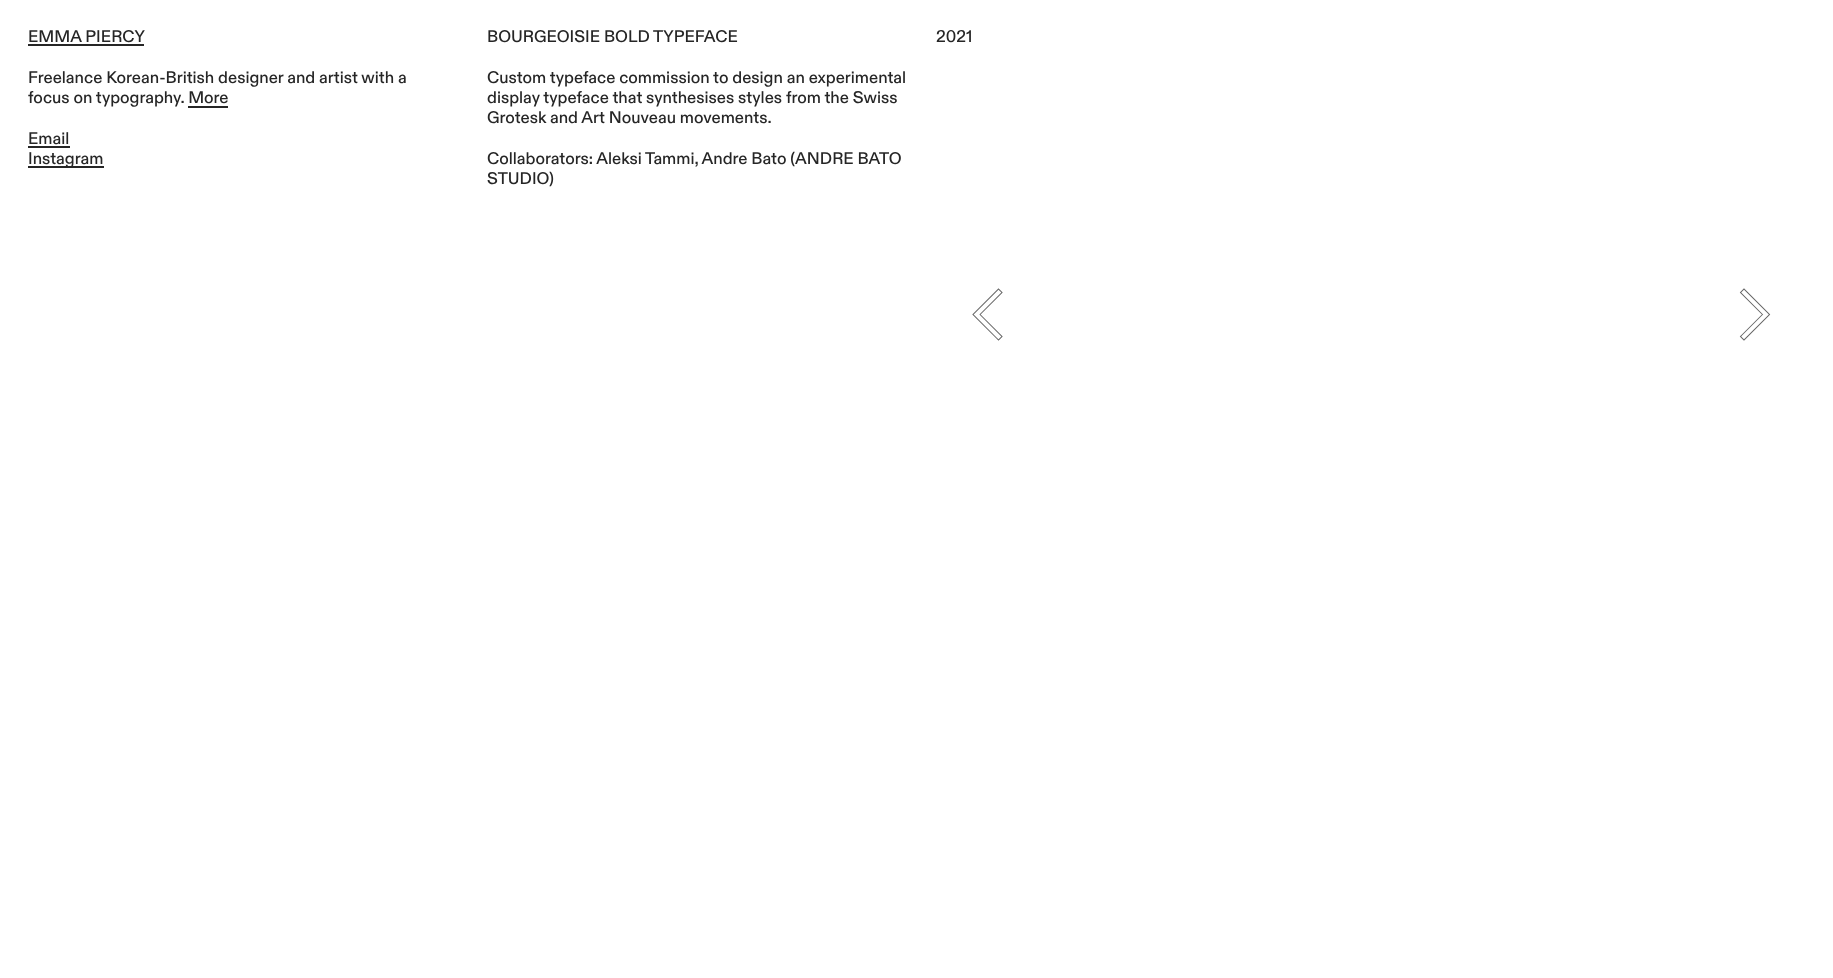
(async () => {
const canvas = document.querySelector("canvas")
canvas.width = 1833
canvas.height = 978
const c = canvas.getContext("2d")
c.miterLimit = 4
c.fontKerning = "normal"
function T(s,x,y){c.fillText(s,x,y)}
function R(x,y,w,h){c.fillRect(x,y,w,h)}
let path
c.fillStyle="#fff"
R(0,0,1833,978)
c.font="500 16.9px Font"
c.fillStyle="#262626"
T("EMMA PIERCY",28,42)
R(28,44,116,2)
T("Freelance Korean-British designer and artist with a",28,83)
T("focus on typography. More",28,103)
R(188,106,40,2)
T("Email",28,144)
R(28,146,42,2)
R(28,166,76,2)
T("Instagram",28,164)
T("BOURGEOISIE BOLD TYPEFACE",487,42)
T("Custom typeface commission to design an experimental",487,83)
T("display typeface that synthesises styles from the Swiss",487,103)
T("Grotesk and Art Nouveau movements.",487,123)
T("Collaborators: Aleksi Tammi, Andre Bato (ANDRE BATO",487,164)
T("STUDIO)",487,184)
T("2021",936,42)
path = new Path2D("M998.5 336.5l-22-22l22-22")
c.strokeStyle="#666"
c.lineWidth=6
c.lineCap="square"
c.stroke(path)
path = new Path2D("M998.5 336.5l-22-22l22-22")
c.strokeStyle="#fff"
c.lineWidth=4
c.stroke(path)
path = new Path2D("M1744 336.5l22-22l-22-22")
c.strokeStyle="#666"
c.lineWidth=6
c.stroke(path)
path = new Path2D("M1744 336.5l22-22l-22-22")
c.strokeStyle="#fff"
c.lineWidth=4
c.stroke(path)
})()
